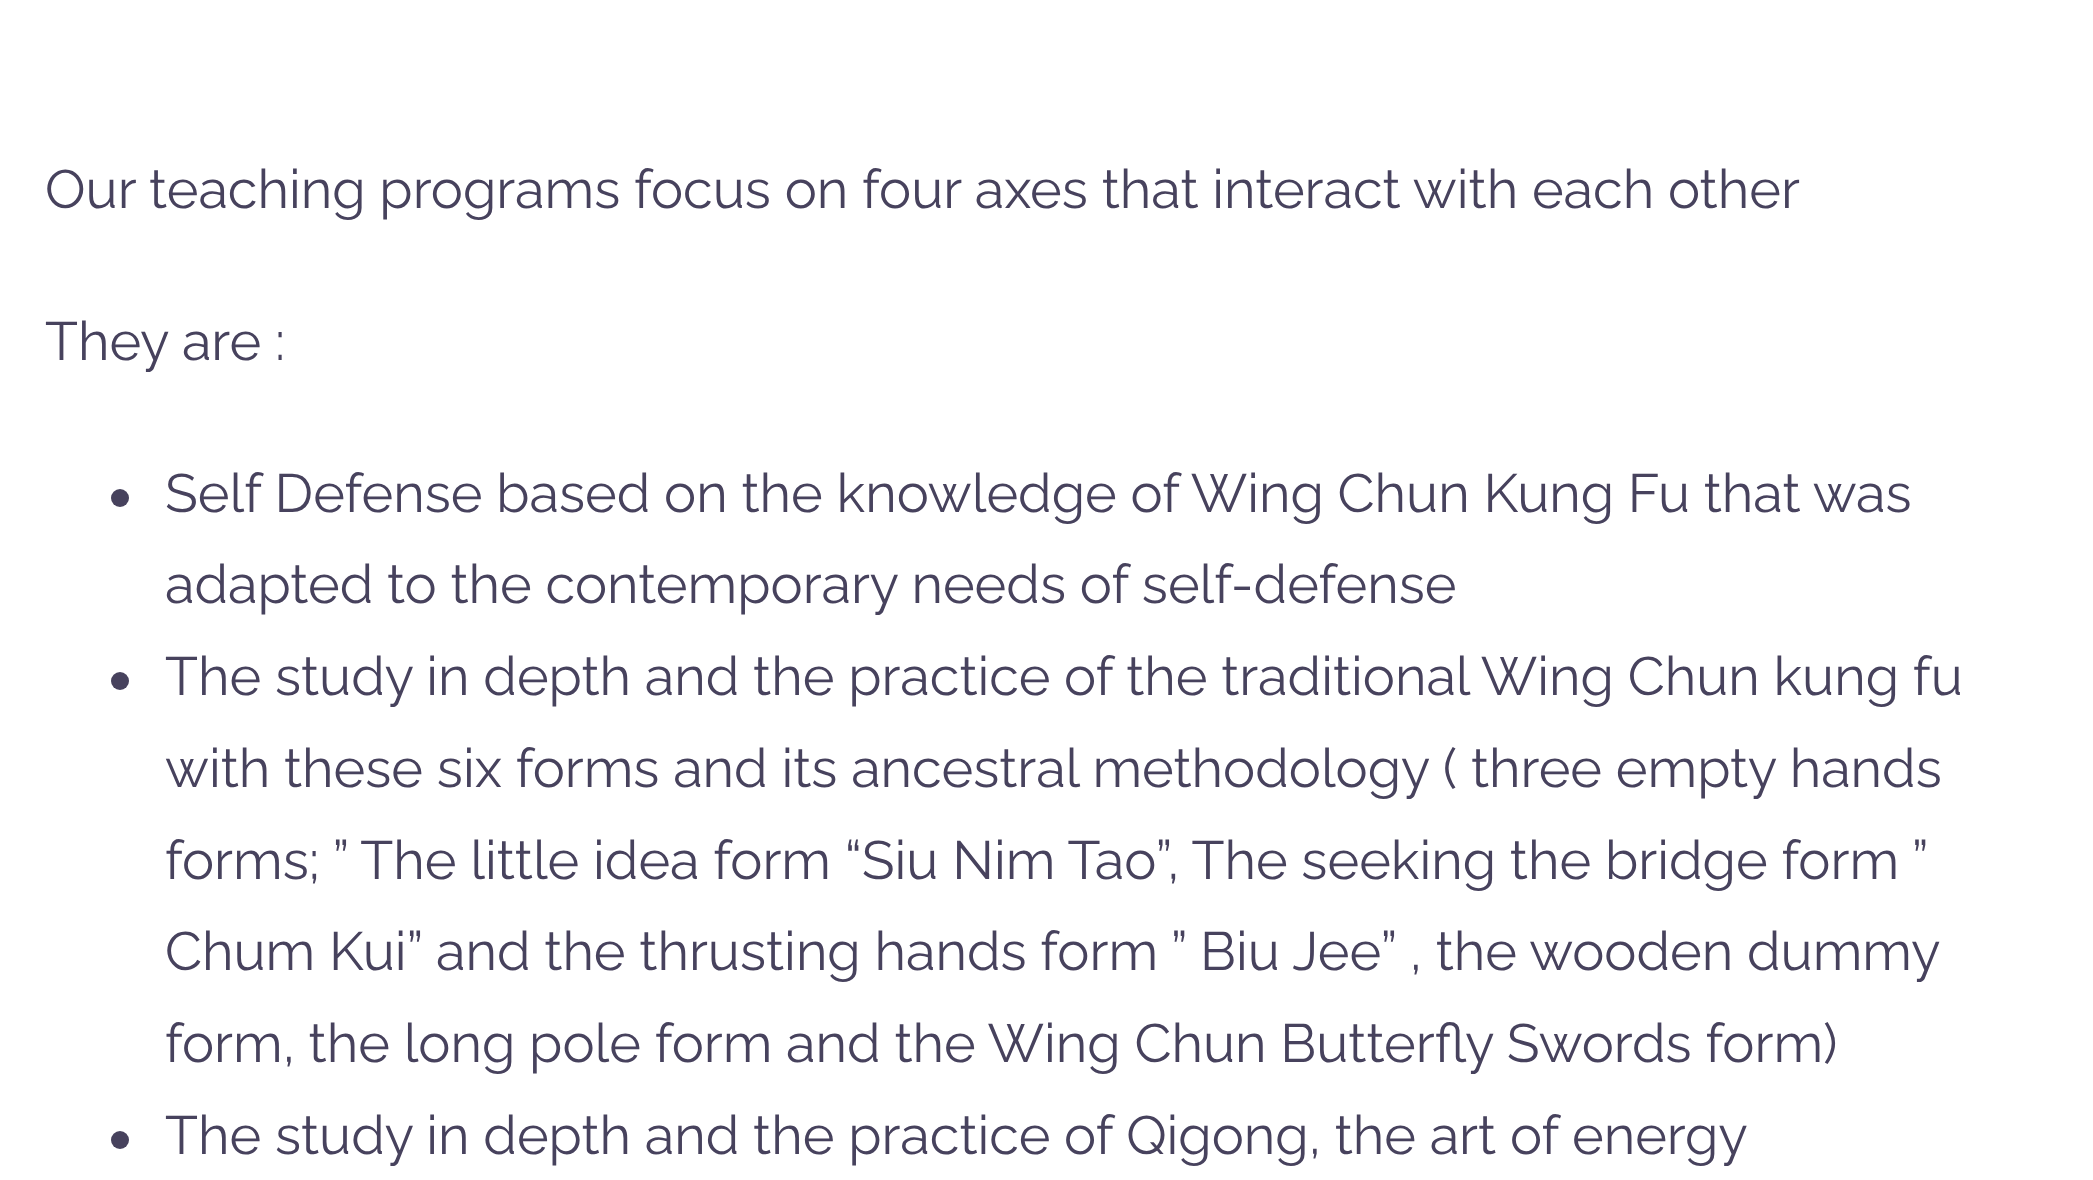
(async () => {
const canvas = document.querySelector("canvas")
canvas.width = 2093
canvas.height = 1180
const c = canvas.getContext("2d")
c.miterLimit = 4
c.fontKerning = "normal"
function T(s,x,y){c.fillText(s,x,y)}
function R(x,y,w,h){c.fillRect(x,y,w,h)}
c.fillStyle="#fff"
R(0,0,2093,1180)
c.font="54px Raleway"
c.fillStyle="#47425d"
T("Our teaching programs focus on four axes that interact with each other",45,208)
T("They are :",45,360)
c.beginPath()
c.arc(120,498,9,0,7)
c.fill()
T("Self Defense based on the knowledge of Wing Chun Kung Fu that was",165,512)
T("adapted to the contemporary needs of self-defense",165,603)
c.beginPath()
c.arc(120,681,9,0,7)
c.fill()
T("The study in depth and the practice of the traditional Wing Chun kung fu",165,695)
T("with these six forms and its ancestral methodology ( three empty hands",165,787)
T("forms; ” The little idea form “Siu Nim Tao”, The seeking the bridge form ”",165,879)
T("Chum Kui” and the thrusting hands form ” Biu Jee” , the wooden dummy",165,970)
T("form, the long pole form and the Wing Chun Butterfly Swords form)",165,1062)
c.beginPath()
c.arc(120,1140,9,0,7)
c.fill()
T("The study in depth and the practice of Qigong, the art of energy",165,1154)
})()
